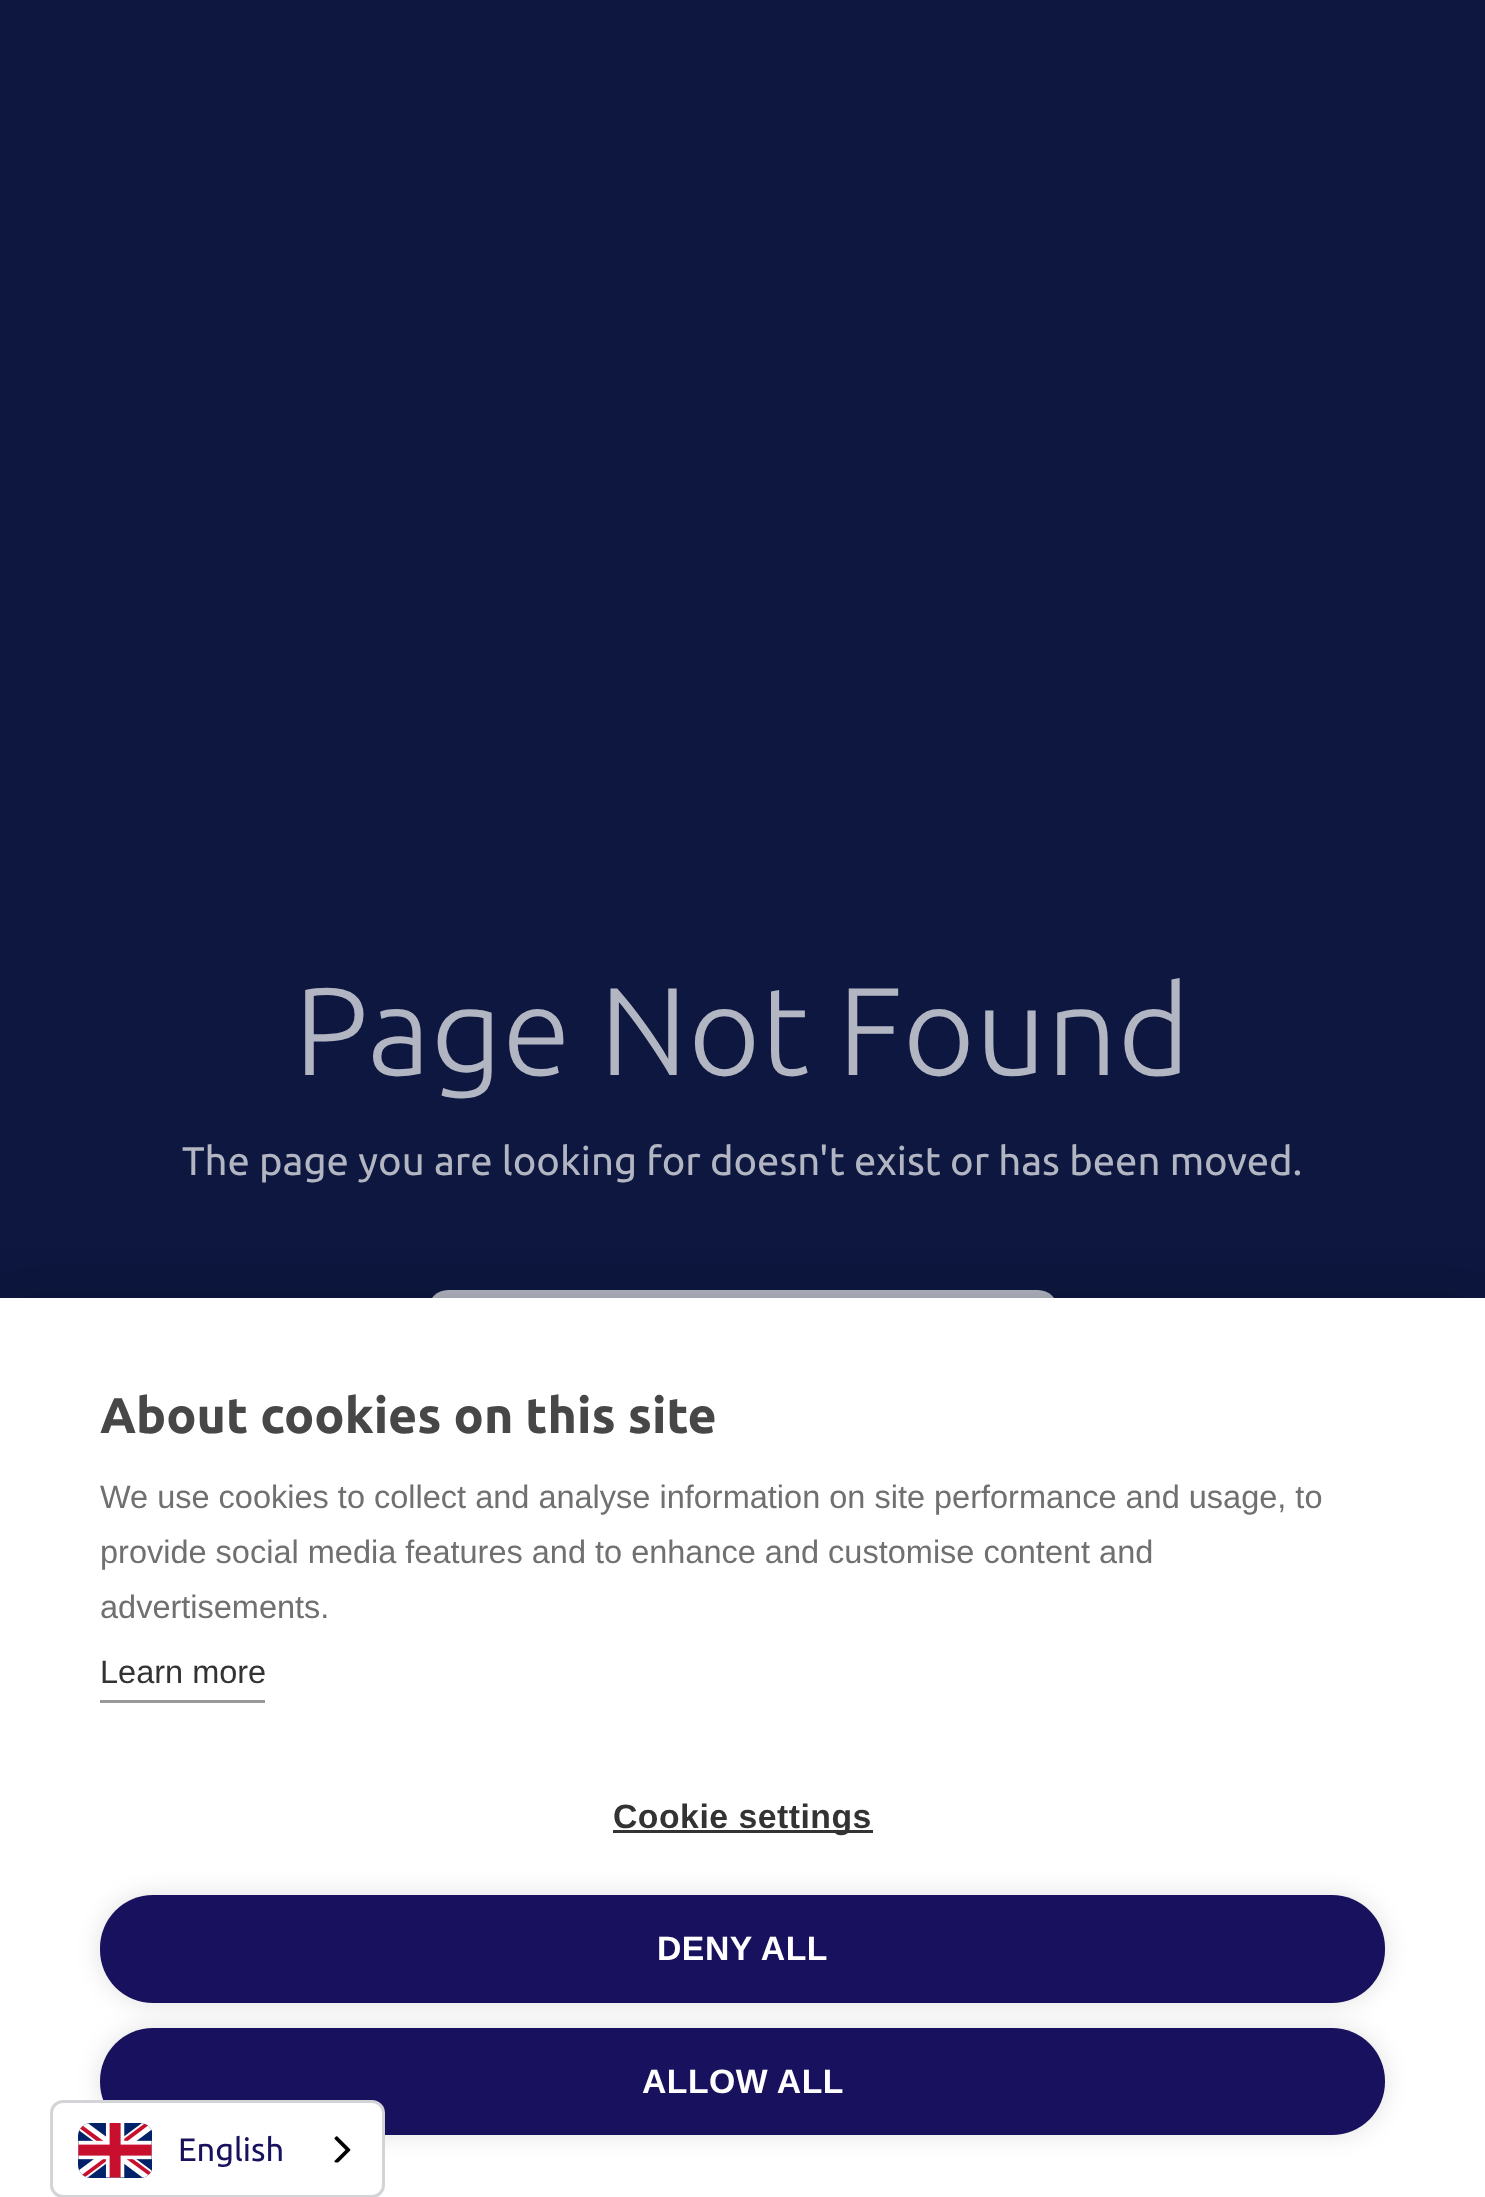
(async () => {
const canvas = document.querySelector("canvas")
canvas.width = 1485
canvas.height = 2197
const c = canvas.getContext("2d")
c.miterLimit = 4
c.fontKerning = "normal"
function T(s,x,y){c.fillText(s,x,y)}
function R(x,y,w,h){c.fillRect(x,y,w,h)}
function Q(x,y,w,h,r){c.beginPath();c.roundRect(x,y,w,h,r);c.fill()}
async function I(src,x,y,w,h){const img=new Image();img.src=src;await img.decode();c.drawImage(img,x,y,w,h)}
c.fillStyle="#0d173f"
R(0,0,1485,2197)
c.font="300 125px Ubuntu"
c.fillStyle="#b2b6c2"
T("Page Not Found",294,1075)
c.font="40px Ubuntu"
T("The page you are looking for doesn't exist or has been moved.",182,1175)
Q(428,1290,630,145,20)
c.fillStyle="#00000033"
c.filter="blur(25px)"
c.beginPath()
c.rect(0,1298,1485,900)
c.fill()
c.filter="none"
c.fillStyle="#fff"
R(0,1298,1485,899)
c.font="bold 50px Ubuntu"
c.fillStyle="#474747"
T("About cookies on this site",100,1433)
c.font="32.5px Liberation Sans"
c.fillStyle="#707070"
T("We use cookies to collect and analyse information on site performance and usage, to",100,1508)
T("provide social media features and to enhance and customise content and",100,1563)
T("advertisements.",100,1618)
c.fillStyle="#999"
R(100,1700,165,3)
c.fillStyle="#333"
T("Learn more",100,1683)
R(613,1830,260,3)
c.letterSpacing="0.5px"
c.font="bold 33.75px Liberation Sans"
T("Cookie settings",613,1828)
c.fillStyle="#0000001f"
c.filter="blur(12.5px)"
c.beginPath()
c.roundRect(100,1895,1285,108,53)
c.fill()
c.filter="none"
c.fillStyle="#18115e"
Q(100,1895,1285,108,53)
c.fillStyle="#fff"
T("DENY ALL",657,1960)
c.fillStyle="#0000001f"
c.filter="blur(12.5px)"
c.beginPath()
c.roundRect(100,2028,1285,107,53)
c.fill()
c.filter="none"
c.fillStyle="#18115e"
Q(100,2028,1285,107,53)
c.fillStyle="#fff"
T("ALLOW ALL",642,2093)
c.beginPath()
c.roundRect(51.5,2101.5,332,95,11.5)
c.fill()
c.strokeStyle="#d3d4d7"
c.lineWidth=3
c.stroke()
await I("1.png",78,2123,74,55)
c.letterSpacing="0px"
c.font="32.5px Ubuntu"
c.fillStyle="#17115e"
T("English",178,2161)
await I("2.png",334,2136,17,27)
})()
